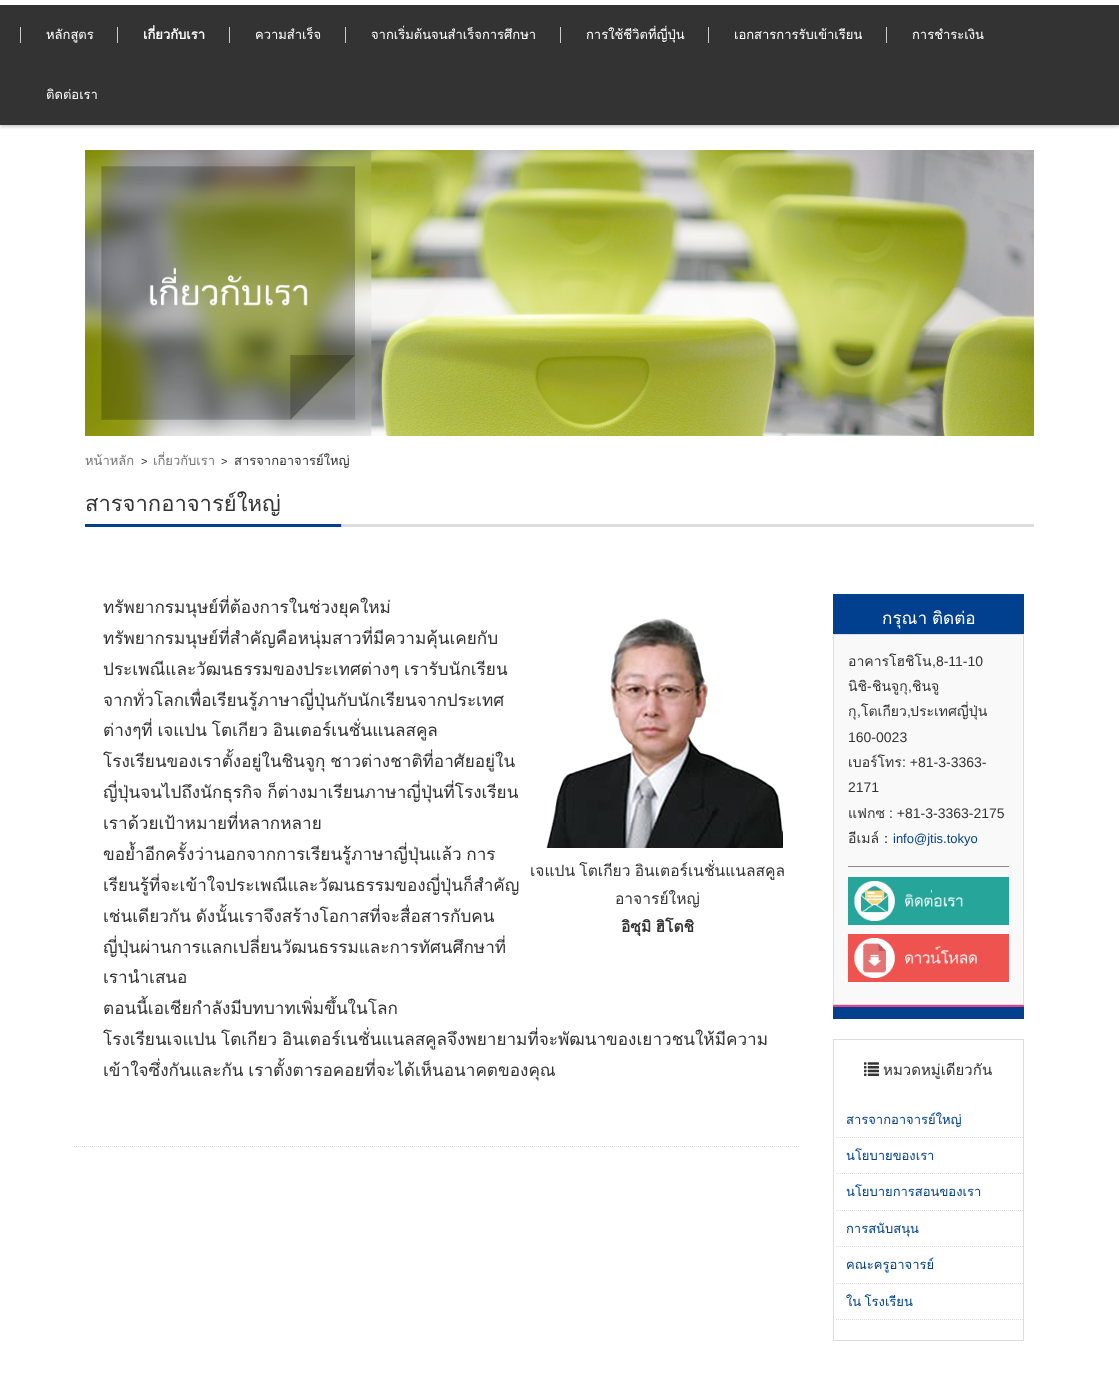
(async () => {
const canvas = document.querySelector("canvas")
canvas.width = 1119
canvas.height = 1381
const c = canvas.getContext("2d")
c.miterLimit = 4
c.fontKerning = "normal"
function T(s,x,y){c.fillText(s,x,y)}
function R(x,y,w,h){c.fillRect(x,y,w,h)}
async function I(src,x,y,w,h){const img=new Image();img.src=src;await img.decode();c.drawImage(img,x,y,w,h)}
let path
c.fillStyle="#fff"
R(0,0,1119,1381)
c.fillStyle="#00000033"
c.filter="blur(1.5px)"
c.beginPath()
c.rect(0,7,1119,120)
c.fill()
c.filter="none"
c.fillStyle="#333"
R(0,5,1119,120)
c.fillStyle="#ccc"
R(20,27,1,16)
c.font="13px Loma"
c.fillStyle="#fff"
T("หลักสูตร",46,39)
c.fillStyle="#ccc"
R(117,27,1,16)
c.font="bold 13px Loma"
c.fillStyle="#fff"
T("เกี่ยวกับเรา",143,39)
c.fillStyle="#ccc"
R(229,27,1,16)
c.font="13px Loma"
c.fillStyle="#fff"
T("ความสำเร็จ",255,39)
c.fillStyle="#ccc"
R(345,27,1,16)
c.fillStyle="#fff"
T("จากเริ่มต้นจนสำเร็จการศึกษา",371,39)
c.fillStyle="#ccc"
R(560,27,1,16)
c.fillStyle="#fff"
T("การใช้ชีวิตที่ญี่ปุ่น",586,39)
c.fillStyle="#ccc"
R(708,27,1,16)
c.fillStyle="#fff"
T("เอกสารการรับเข้าเรียน",734,39)
c.fillStyle="#ccc"
R(886,27,1,16)
c.fillStyle="#fff"
T("การชำระเงิน",912,39)
T("ติดต่อเรา",46,99)
await I("1.png",85,150,949,286)
c.fillStyle="#777"
T("หน้าหลัก",85,465)
c.font="11px Liberation Sans"
c.fillStyle="#333"
T(">",141,465)
c.font="13px Loma"
c.fillStyle="#777"
T("เกี่ยวกับเรา",153,465)
c.font="11px Liberation Sans"
c.fillStyle="#333"
T(">",221,465)
c.font="13px Loma"
T("สารจากอาจารย์ใหญ่",234,465)
await I("2.png",85,524,949,3)
c.font="22px Loma"
T("สารจากอาจารย์ใหญ่",85,511)
path = new Path2D("M74 1146.5h726")
c.strokeStyle="#ddd"
c.setLineDash([1,1])
c.stroke(path)
c.font="17.15px Loma"
T("ทรัพยากรมนุษย์ที่ต้องการในช่วงยุคใหม่",103,613)
T("ทรัพยากรมนุษย์ที่สำคัญคือหนุ่มสาวที่มีความคุ้นเคยกับ",103,644)
c.wordSpacing="-1px"
T("ประเพณีและวัฒนธรรมของประเทศต่างๆ เรารับนักเรียน",103,675)
c.wordSpacing="0px"
T("จากทั่วโลกเพื่อเรียนรู้ภาษาญี่ปุ่นกับนักเรียนจากประเทศ",103,706)
c.wordSpacing="-1px"
T("ต่างๆที่ เจแปน โตเกียว อินเตอร์เนชั่นแนลสคูล",103,736)
T("โรงเรียนของเราตั้งอยู่ในชินจูกุ ชาวต่างชาติที่อาศัยอยู่ใน",103,767)
T("ญี่ปุ่นจนไปถึงนักธุรกิจ ก็ต่างมาเรียนภาษาญี่ปุ่นที่โรงเรียน",103,798)
c.wordSpacing="0px"
T("เราด้วยเป้าหมายที่หลากหลาย",103,829)
c.wordSpacing="-1px"
T("ขอย้ำอีกครั้งว่านอกจากการเรียนรู้ภาษาญี่ปุ่นแล้ว การ",103,860)
c.wordSpacing="0px"
T("เรียนรู้ที่จะเข้าใจประเพณีและวัฒนธรรมของญี่ปุ่นก็สำคัญ",103,891)
c.wordSpacing="-1px"
T("เช่นเดียวกัน ดังนั้นเราจึงสร้างโอกาสที่จะสื่อสารกับคน",103,922)
c.wordSpacing="0px"
T("ญี่ปุ่นผ่านการแลกเปลี่ยนวัฒนธรรมและการทัศนศึกษาที่",103,953)
T("เรานำเสนอ",103,983)
T("ตอนนี้เอเชียกำลังมีบทบาทเพิ่มขึ้นในโลก",103,1014)
c.wordSpacing="-1px"
T("โรงเรียนเจแปน โตเกียว อินเตอร์เนชั่นแนลสคูลจึงพยายามที่จะพัฒนาของเยาวชนให้มีความ",103,1045)
T("เข้าใจซึ่งกันและกัน เราตั้งตารอคอยที่จะได้เห็นอนาคตของคุณ",103,1076)
await I("3.png",546,618,237,230)
c.font="15.6px Loma"
T("เจแปน โตเกียว อินเตอร์เนชั่นแนลสคูล",530,876)
c.wordSpacing="0px"
T("อาจารย์ใหญ่",615,904)
c.wordSpacing="-1px"
c.font="bold 15.6px Loma"
T("อิซุมิ ฮิโตชิ",621,932)
c.fillStyle="#00408f"
R(833,594,191,40)
c.font="17.15px Loma"
c.fillStyle="#fff"
T("กรุณา ติดต่อ",882,624)
c.fillStyle="#f9f9f9"
c.beginPath()
c.rect(833.5,634.5,190,370)
c.fill()
c.setLineDash([])
c.stroke()
c.wordSpacing="0px"
c.font="14px Loma"
c.fillStyle="#333"
T("อาคารโฮชิโน",848,666)
c.font="14px Liberation Sans"
T(",8-11-10",932,666)
c.font="14px Loma"
T("นิชิ",848,691)
c.font="14px Liberation Sans"
T("-",867,691)
c.font="14px Loma"
T("ชินจูกุ",872,691)
c.font="14px Liberation Sans"
T(",",908,691)
c.font="14px Loma"
T("ชินจู",912,691)
T("กุ",848,716)
c.font="14px Liberation Sans"
T(",",857,716)
c.font="14px Loma"
T("โตเกียว",861,716)
c.font="14px Liberation Sans"
T(",",907,716)
c.font="14px Loma"
T("ประเทศญี่ปุ่น",910,716)
c.font="14px Liberation Sans"
T("160-0023",848,742)
c.font="14px Loma"
T("เบอร์โทร",848,767)
c.font="14px Liberation Sans"
T(": +81-3-3363-",902,767)
T("2171",848,792)
c.font="14px Loma"
T("แฟกซ",848,818)
c.font="14px Liberation Sans"
T(": +81-3-3363-2175",889,818)
c.font="14px Loma"
T("อีเมล์",848,843)
c.font="500 14px WenQuanYi Zen Hei"
T("：",879,843)
c.font="13px Liberation Sans"
c.fillStyle="#00408f"
T("info@jtis.tokyo",893,843)
c.fillStyle="#888"
R(848,866,161,1)
await I("4.png",848,877,161,48)
await I("5.png",848,934,161,48)
c.fillStyle="#00408f"
R(833,1007,191,12)
c.fillStyle="#e73f8c"
R(833,1005,191,2)
c.strokeRect(833.5,1039.5,190,301)
await I("6.png",864,1062,15,14)
c.font="15px Loma"
c.fillStyle="#333"
T("หมวดหมู่เดียวกัน",883,1075)
path = new Path2D("M836 1137.5h187")
c.setLineDash([1,1])
c.stroke(path)
c.font="13px Loma"
c.fillStyle="#00408f"
T("สารจากอาจารย์ใหญ่",846,1124)
path = new Path2D("M836 1173.5h187")
c.stroke(path)
T("นโยบายของเรา",846,1160)
path = new Path2D("M836 1210.5h187")
c.stroke(path)
T("นโยบายการสอนของเรา",846,1196)
path = new Path2D("M836 1246.5h187")
c.stroke(path)
T("การสนับสนุน",846,1233)
path = new Path2D("M836 1283.5h187")
c.stroke(path)
T("คณะครูอาจารย์",846,1269)
path = new Path2D("M836 1319.5h187")
c.stroke(path)
c.wordSpacing="-1px"
T("ใน โรงเรียน",846,1306)
})()
